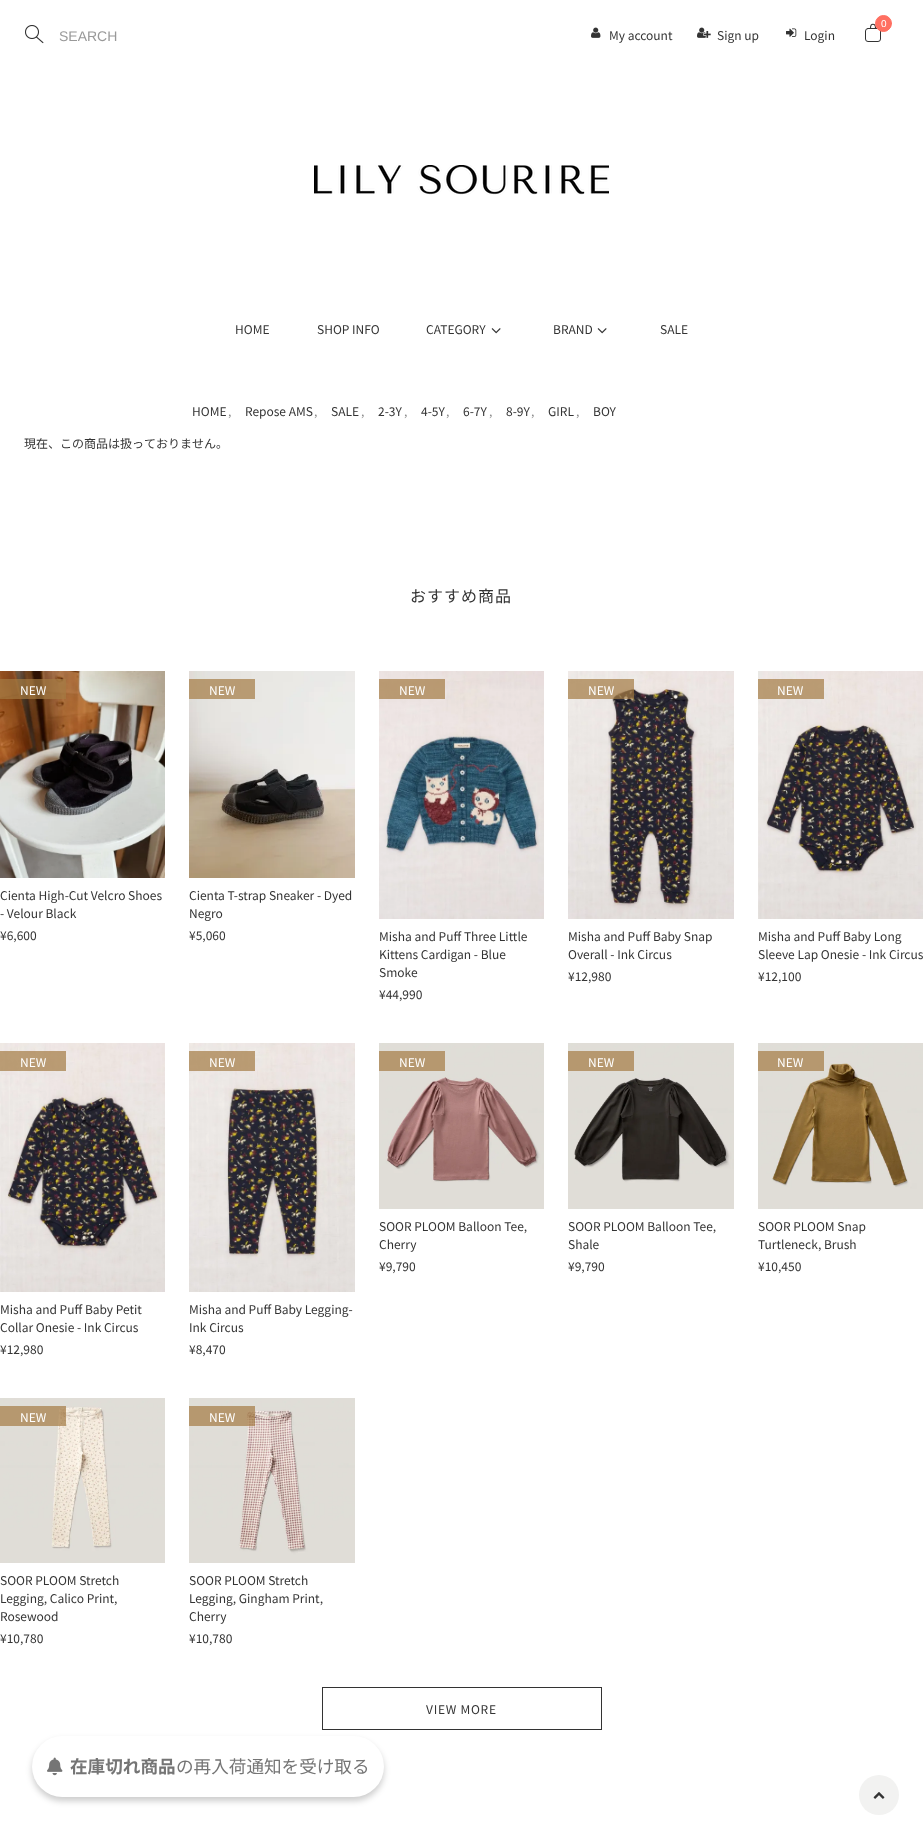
(async () => {
const canvas = document.querySelector("canvas")
canvas.width = 923
canvas.height = 1829
const c = canvas.getContext("2d")
c.miterLimit = 4
c.fontKerning = "normal"
function T(s,x,y){c.fillText(s,x,y)}
function R(x,y,w,h){c.fillRect(x,y,w,h)}
function Q(x,y,w,h,r){c.beginPath();c.roundRect(x,y,w,h,r);c.fill()}
async function I(src,x,y,w,h){const img=new Image();img.src=src;await img.decode();c.drawImage(img,x,y,w,h)}
let path
c.fillStyle="#fff"
R(0,0,923,1829)
await I("1.png",25,25,19,19)
c.font="14px Liberation Sans"
c.fillStyle="#999"
T("SEARCH",59,41)
path = new Path2D("M875.5 28c0-5-5-5-5 0")
c.strokeStyle="#333"
c.lineWidth=1.1
c.lineCap="round"
c.stroke(path)
c.beginPath()
c.roundRect(865.5,28.5,15,13,2.5)
c.lineWidth=1
c.stroke()
c.fillStyle="#ff6f61"
c.beginPath()
c.arc(883.5,23.5,8,0,7)
c.fill()
c.strokeStyle="#ff6f61"
c.stroke()
c.font="10px Liberation Sans"
c.fillStyle="#fff"
T("0",881,27)
await I("2.png",591,27,10,11)
c.font="12px Noto Sans JP"
c.fillStyle="#333"
T("My account",609,40)
await I("3.png",697,27,14,11)
T("Sign up",717,40)
await I("4.png",786,28,11,9)
T("Login",804,40)
T("HOME",235,334)
T("SHOP INFO",317,334)
T("CATEGORY",426,334)
await I("5.png",491,328,10,6)
T("BRAND",553,334)
await I("5.png",597,328,10,6)
T("SALE",660,334)
await I("6.png",314,165,295,30)
T("HOME",192,416)
c.fillStyle="#888"
T(",",228,416)
c.fillStyle="#333"
T("Repose AMS",245,416)
c.fillStyle="#888"
T(",",314,416)
c.fillStyle="#333"
T("SALE",331,416)
c.fillStyle="#888"
T(",",361,416)
c.fillStyle="#333"
T("2-3Y",378,416)
c.fillStyle="#888"
T(",",404,416)
c.fillStyle="#333"
T("4-5Y",421,416)
c.fillStyle="#888"
T(",",446,416)
c.fillStyle="#333"
T("6-7Y",463,416)
c.fillStyle="#888"
T(",",489,416)
c.fillStyle="#333"
T("8-9Y",506,416)
c.fillStyle="#888"
T(",",531,416)
c.fillStyle="#333"
T("GIRL",548,416)
c.fillStyle="#888"
T(",",576,416)
c.fillStyle="#333"
T("BOY",593,416)
T("現在、この商品は扱っておりません。",24,448)
c.letterSpacing="1px"
c.font="16px Noto Sans JP"
T("おすすめ商品",410,602)
await I("7.png",0,671,165,207)
c.fillStyle="#a47a43b3"
R(0,679,66,20)
c.letterSpacing="0px"
c.font="12px Noto Sans JP"
c.fillStyle="#fff"
T("NEW",20,695)
c.fillStyle="#333"
T("Cienta High-Cut Velcro Shoes",0,900)
T("- Velour Black",0,918)
T("¥6,600",0,940)
await I("8.png",189,671,166,207)
c.fillStyle="#a47a43b3"
R(189,679,66,20)
c.fillStyle="#fff"
T("NEW",209,695)
c.fillStyle="#333"
T("Cienta T-strap Sneaker - Dyed",189,900)
T("Negro",189,918)
T("¥5,060",189,940)
await I("9.png",379,671,165,248)
c.fillStyle="#a47a43b3"
R(379,679,66,20)
c.fillStyle="#fff"
T("NEW",399,695)
c.fillStyle="#333"
T("Misha and Puff Three Little",379,941)
T("Kittens Cardigan - Blue",379,959)
T("Smoke",379,977)
T("¥44,990",379,999)
await I("10.png",568,671,166,248)
c.fillStyle="#a47a43b3"
R(568,679,66,20)
c.fillStyle="#fff"
T("NEW",588,695)
c.fillStyle="#333"
T("Misha and Puff Baby Snap",568,941)
T("Overall - Ink Circus",568,959)
T("¥12,980",568,981)
await I("11.png",758,671,165,248)
c.fillStyle="#a47a43b3"
R(758,679,66,20)
c.fillStyle="#fff"
T("NEW",777,695)
c.fillStyle="#333"
T("Misha and Puff Baby Long",758,941)
T("Sleeve Lap Onesie - Ink Circus",758,959)
T("¥12,100",758,981)
await I("12.png",0,1043,165,249)
c.fillStyle="#a47a43b3"
R(0,1051,66,20)
c.fillStyle="#fff"
T("NEW",20,1067)
c.fillStyle="#333"
T("Misha and Puff Baby Petit",0,1314)
T("Collar Onesie - Ink Circus",0,1332)
T("¥12,980",0,1354)
await I("13.png",189,1043,166,249)
c.fillStyle="#a47a43b3"
R(189,1051,66,20)
c.fillStyle="#fff"
T("NEW",209,1067)
c.fillStyle="#333"
T("Misha and Puff Baby Legging-",189,1314)
T("Ink Circus",189,1332)
T("¥8,470",189,1354)
await I("14.png",379,1043,165,166)
c.fillStyle="#a47a43b3"
R(379,1051,66,20)
c.fillStyle="#fff"
T("NEW",399,1067)
c.fillStyle="#333"
T("SOOR PLOOM Balloon Tee,",379,1231)
T("Cherry",379,1249)
T("¥9,790",379,1271)
await I("15.png",568,1043,166,166)
c.fillStyle="#a47a43b3"
R(568,1051,66,20)
c.fillStyle="#fff"
T("NEW",588,1067)
c.fillStyle="#333"
T("SOOR PLOOM Balloon Tee,",568,1231)
T("Shale",568,1249)
T("¥9,790",568,1271)
await I("16.png",758,1043,165,166)
c.fillStyle="#a47a43b3"
R(758,1051,66,20)
c.fillStyle="#fff"
T("NEW",777,1067)
c.fillStyle="#333"
T("SOOR PLOOM Snap",758,1231)
T("Turtleneck, Brush",758,1249)
T("¥10,450",758,1271)
await I("17.png",0,1398,165,165)
c.fillStyle="#a47a43b3"
R(0,1406,66,20)
c.fillStyle="#fff"
T("NEW",20,1422)
c.fillStyle="#333"
T("SOOR PLOOM Stretch",0,1585)
T("Legging, Calico Print,",0,1603)
T("Rosewood",0,1621)
T("¥10,780",0,1643)
await I("18.png",189,1398,166,165)
c.fillStyle="#a47a43b3"
R(189,1406,66,20)
c.fillStyle="#fff"
T("NEW",209,1422)
c.fillStyle="#333"
T("SOOR PLOOM Stretch",189,1585)
T("Legging, Gingham Print,",189,1603)
T("Cherry",189,1621)
T("¥10,780",189,1643)
c.strokeStyle="#333"
c.strokeRect(322.5,1687.5,279,42)
c.letterSpacing="0.75px"
T("VIEW MORE",426,1714)
c.fillStyle="#00000033"
c.filter="blur(3px)"
c.beginPath()
c.roundRect(32,1740,352,61,30.5)
c.fill()
c.filter="none"
c.fillStyle="#fff"
Q(32,1736,352,61,30.5)
await I("19.png",47,1757,16,19)
c.letterSpacing="0px"
c.font="bold 17.6px Noto Sans JP"
c.fillStyle="#757575"
T("在庫切れ商品",70,1773)
c.font="17.6px Noto Sans JP"
T("の再入荷通知を受け取る",176,1773)
c.fillStyle="#f2f2f1"
c.beginPath()
c.arc(879,1795,20,0,7)
c.fill()
await I("20.png",873,1792,12,7)
})()
